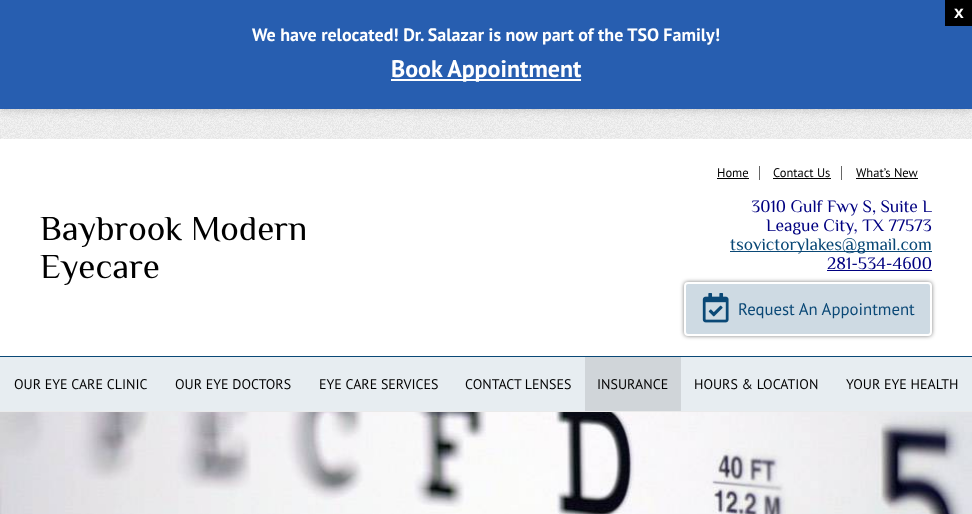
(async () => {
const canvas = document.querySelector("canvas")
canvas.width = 972
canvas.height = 514
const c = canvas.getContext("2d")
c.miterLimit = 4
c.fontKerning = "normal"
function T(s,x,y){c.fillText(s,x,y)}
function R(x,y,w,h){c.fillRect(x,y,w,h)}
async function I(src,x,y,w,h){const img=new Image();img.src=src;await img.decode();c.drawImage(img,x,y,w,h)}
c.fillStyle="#fff"
R(0,0,972,514)
await I("1.png",0,109,972,30)
c.fillStyle="#00000033"
c.filter="blur(5px)"
c.beginPath()
c.rect(0,0,972,109)
c.fill()
c.filter="none"
c.fillStyle="#275eb0"
R(0,0,972,109)
c.fillStyle="#000"
R(945,0,27,26)
c.font="bold 17.5px Liberation Sans"
c.fillStyle="#fff"
T("x",954,18)
c.font="bold 18px PT Sans"
T("We have relocated! Dr. Salazar is now part of the TSO Family!",252,41)
R(391,79,190,2)
c.font="bold 24px PT Sans"
T("Book Appointment",391,77)
c.font="35px Philosopher"
c.fillStyle="#000"
T("Baybrook Modern",40,240)
T("Eyecare",40,278)
c.fillStyle="#666"
R(759,166,1,14)
c.font="12.5px PT Sans"
c.fillStyle="#000"
T("Home",717,177)
R(717,178,32,1)
c.fillStyle="#666"
R(841,166,1,14)
c.fillStyle="#000"
T("Contact Us",773,177)
R(773,178,58,1)
T("What’s New",856,177)
R(856,178,62,1)
c.font="17.5px Philosopher"
c.fillStyle="#000080"
T("3010 Gulf Fwy S, Suite L",751,212)
T("League City, TX 77573",766,231)
c.fillStyle="#0a4876"
R(730,251,202,1)
T("tsovictorylakes@gmail.com",730,250)
c.fillStyle="#000080"
T("281-534-4600",827,269)
R(827,270,105,1)
c.fillStyle="#00000080"
c.filter="blur(2px)"
c.beginPath()
c.roundRect(684,282,248,54,4)
c.fill()
c.filter="none"
c.fillStyle="#cedae3"
c.beginPath()
c.roundRect(685,283,246,52,3)
c.fill()
c.strokeStyle="#fff"
c.lineWidth=2
c.stroke()
await I("2.png",702,293,27,30)
c.font="16.75px PT Sans"
c.fillStyle="#0a4876"
T("Request An Appointment",738,315)
c.fillStyle="#e7edf1"
R(0,357,972,54)
c.fillStyle="#0a4876"
R(0,356,972,1)
c.fillStyle="#eaeaea"
R(0,411,972,1)
c.font="14px PT Sans"
c.fillStyle="#000"
T("OUR EYE CARE CLINIC",14,389)
T("OUR EYE DOCTORS",175,389)
T("EYE CARE SERVICES",319,389)
T("CONTACT LENSES",465,389)
c.fillStyle="#d0d5d9"
R(585,357,96,54)
c.fillStyle="#000"
T("INSURANCE",597,389)
T("HOURS & LOCATION",694,389)
T("YOUR EYE HEALTH",846,389)
await I("3.png",0,412,972,102)
})()
